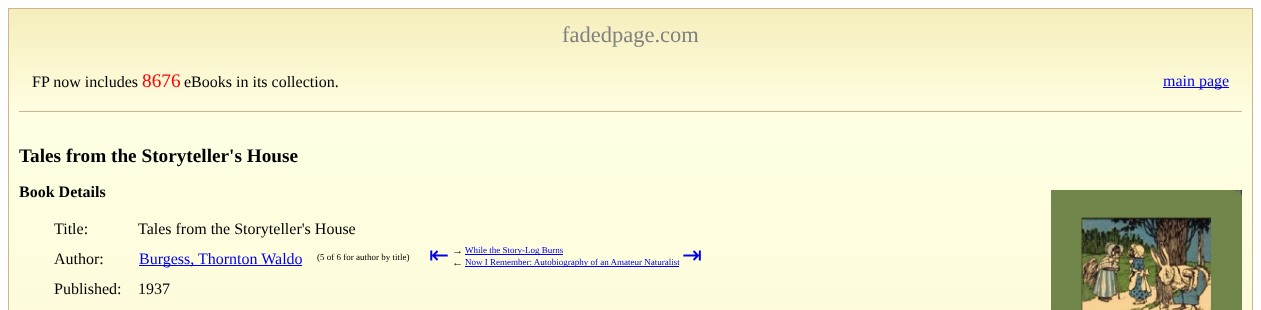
(async () => {
const canvas = document.querySelector("canvas")
canvas.width = 1261
canvas.height = 310
const c = canvas.getContext("2d")
c.miterLimit = 4
c.fontKerning = "normal"
function T(s,x,y){c.fillText(s,x,y)}
function R(x,y,w,h){c.fillRect(x,y,w,h)}
async function I(src,x,y,w,h){const img=new Image();img.src=src;await img.decode();c.drawImage(img,x,y,w,h)}
let gradient
c.fillStyle="#fff"
R(0,0,1261,310)
gradient = c.createLinearGradient(631,9,631,122)
gradient.addColorStop(0,"#f5eebc")
gradient.addColorStop(1,"#ffffe4")
c.fillStyle = gradient
R(9,9,1243,113)
c.fillStyle="#d2b48c"
R(8,8,1245,1)
R(1252,8,1,302)
R(8,8,1,302)
c.font="22.5px Liberation Serif"
c.fillStyle="#808080"
T("fadedpage.com",562,42)
c.font="16px Liberation Serif"
c.fillStyle="#000"
T("FP now includes",32,87)
c.font="19.25px Liberation Serif"
c.fillStyle="#f00"
T("8676",142,87)
c.font="16px Liberation Serif"
c.fillStyle="#000"
T("eBooks in its collection.",184,87)
c.fillStyle="#00e"
R(1163,87,66,1)
T("main page",1163,86)
c.fillStyle="#d2b48c"
R(19,111,1223,1)
gradient = c.createLinearGradient(631,122,631,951)
gradient.addColorStop(0,"#ffffe4")
gradient.addColorStop(1,"#f5eebc")
c.fillStyle = gradient
R(9,122,1243,188)
c.font="bold 19.25px Liberation Serif"
c.fillStyle="#000"
T("Tales from the Storyteller's House",19,162)
c.font="bold 16px Liberation Serif"
T("Book Details",19,197)
await I("1.png",1051,190,191,120)
c.font="16px Liberation Serif"
T("Title:",54,234)
T("Tales from the Storyteller's House",138,234)
T("Author:",54,264)
c.fillStyle="#00e"
R(139,265,163,1)
T("Burgess, Thornton Waldo",139,264)
c.font="9px Liberation Serif"
c.fillStyle="#000"
T("(5 of 6 for author by title)",317,260)
c.font="24px DejaVu Sans"
c.fillStyle="#00e"
T("⇤",429,263)
c.font="11px Liberation Serif"
c.fillStyle="#000"
T("→",452,254)
c.fillStyle="#00e"
R(465,254,98,1)
c.font="9px Liberation Serif"
T("While the Story-Log Burns",465,253)
c.font="11px Liberation Serif"
c.fillStyle="#000"
T("←",452,266)
c.fillStyle="#00e"
R(465,266,214,1)
c.font="9px Liberation Serif"
T("Now I Remember: Autobiography of an Amateur Naturalist",465,265)
c.font="24px DejaVu Sans"
T("⇥",682,263)
c.font="16px Liberation Serif"
c.fillStyle="#000"
T("Published:",54,294)
T("1937",138,294)
})()
